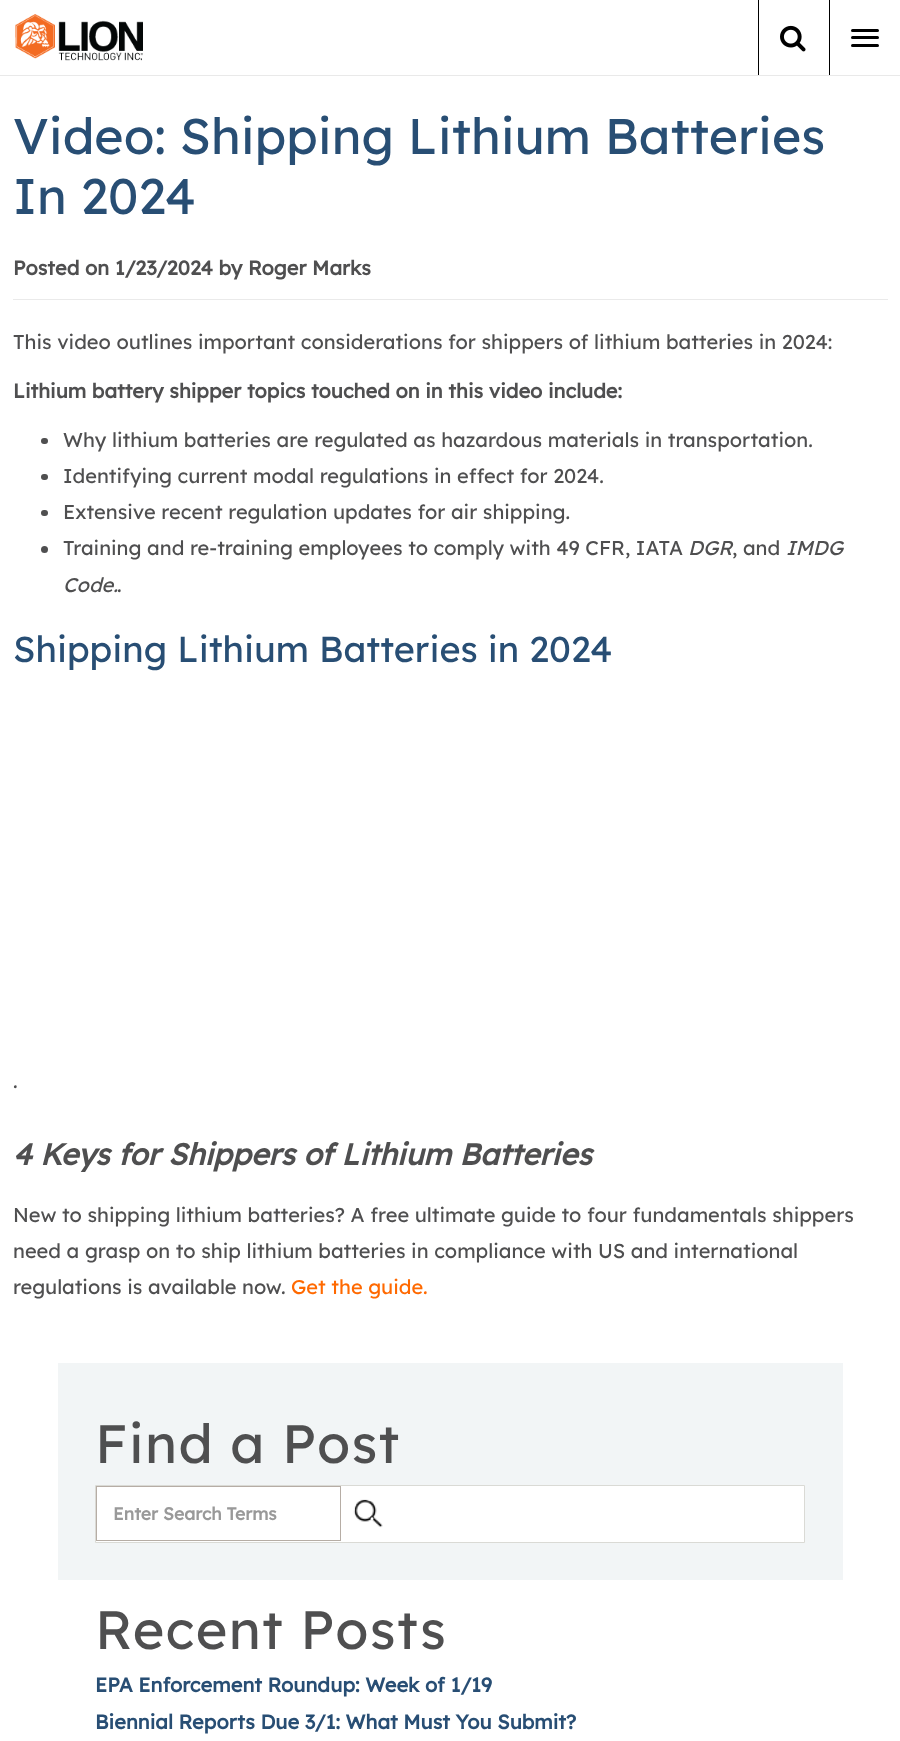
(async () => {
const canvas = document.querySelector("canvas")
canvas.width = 900
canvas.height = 1741
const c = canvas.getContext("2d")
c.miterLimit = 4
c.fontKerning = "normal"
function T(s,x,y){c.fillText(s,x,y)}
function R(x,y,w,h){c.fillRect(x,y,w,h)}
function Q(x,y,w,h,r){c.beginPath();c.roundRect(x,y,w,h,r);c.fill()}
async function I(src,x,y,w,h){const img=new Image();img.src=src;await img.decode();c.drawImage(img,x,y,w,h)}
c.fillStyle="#fff"
R(0,0,900,1741)
await I("1.png",15,14,128,47)
c.fillStyle="#000"
R(758,0,1,75)
await I("2.png",780,25,26,27)
R(829,0,1,75)
Q(851,29,28,3,1.5)
Q(851,36,28,3,1.5)
Q(851,44,28,3,1.5)
c.fillStyle="#e9e9e9"
R(0,75,900,1)
c.fillStyle="#eaeaea"
R(13,299,875,1)
c.font="50px Lexend"
c.fillStyle="#284e74"
T("Video: Shipping Lithium Batteries",13,154)
T("In 2024",13,214)
c.font="bold 20px Lexend"
c.fillStyle="#4f4f50"
T("Posted on 1/23/2024 by Roger Marks",13,275)
c.font="20px Lexend"
T("This video outlines important considerations for shippers of lithium batteries in 2024:",13,349)
c.font="bold 20px Lexend"
T("Lithium battery shipper topics touched on in this video include:",13,398)
Q(41,438,7,6,3)
c.font="20px Lexend"
T("Why lithium batteries are regulated as hazardous materials in transportation.",63,447)
Q(41,474,7,6,3)
T("Identifying current modal regulations in effect for 2024.",63,483)
Q(41,510,7,6,3)
T("Extensive recent regulation updates for air shipping.",63,519)
c.beginPath()
c.arc(44.5,549.5,3.5,0,7)
c.fill()
T("Training and re-training employees to comply with 49 CFR, IATA",63,555)
c.font="italic 20px Lexend"
T("DGR",688,555)
c.font="20px Lexend"
T(", and",732,555)
c.font="italic 20px Lexend"
T("IMDG",786,555)
T("Code.",63,592)
c.font="20px Lexend"
T(".",117,592)
c.font="36px Lexend"
c.fillStyle="#284e74"
T("Shipping Lithium Batteries in 2024",13,662)
c.font="20px Lexend"
c.fillStyle="#4f4f50"
T(".",13,1088)
c.font="italic bold 30px Lexend"
T("4 Keys for Shippers of Lithium Batteries",13,1165)
c.font="20px Lexend"
T("New to shipping lithium batteries? A free ultimate guide to four fundamentals shippers",13,1222)
T("need a grasp on to ship lithium batteries in compliance with US and international",13,1258)
T("regulations is available now.",13,1294)
c.fillStyle="#ff6900"
T("Get the guide.",291,1294)
c.fillStyle="#f2f5f6"
R(58,1363,785,217)
c.letterSpacing="1.25px"
c.font="54px Lexend"
c.fillStyle="#4f4f50"
T("Find a Post",95,1463)
c.fillStyle="#fff"
c.beginPath()
c.rect(95.5,1485.5,709,57)
c.fill()
c.strokeStyle="#dadad5"
c.stroke()
c.strokeStyle="#b6ada5"
c.strokeRect(96.5,1486.5,244,54)
c.letterSpacing="0px"
c.font="bold 17.5px Lexend"
c.fillStyle="#999"
T("Enter Search Terms",113,1520)
await I("3.png",353,1499,30,29)
c.font="bold 16px Lexend"
c.fillStyle="#fff"
T(".",370,1520)
c.letterSpacing="1.25px"
c.font="54px Lexend"
c.fillStyle="#4f4f50"
T("Recent Posts",95,1649)
c.letterSpacing="0px"
c.font="bold 20px Lexend"
c.fillStyle="#284e74"
T("EPA Enforcement Roundup: Week of 1/19",95,1692)
T("Biennial Reports Due 3/1: What Must You Submit?",95,1729)
})()
